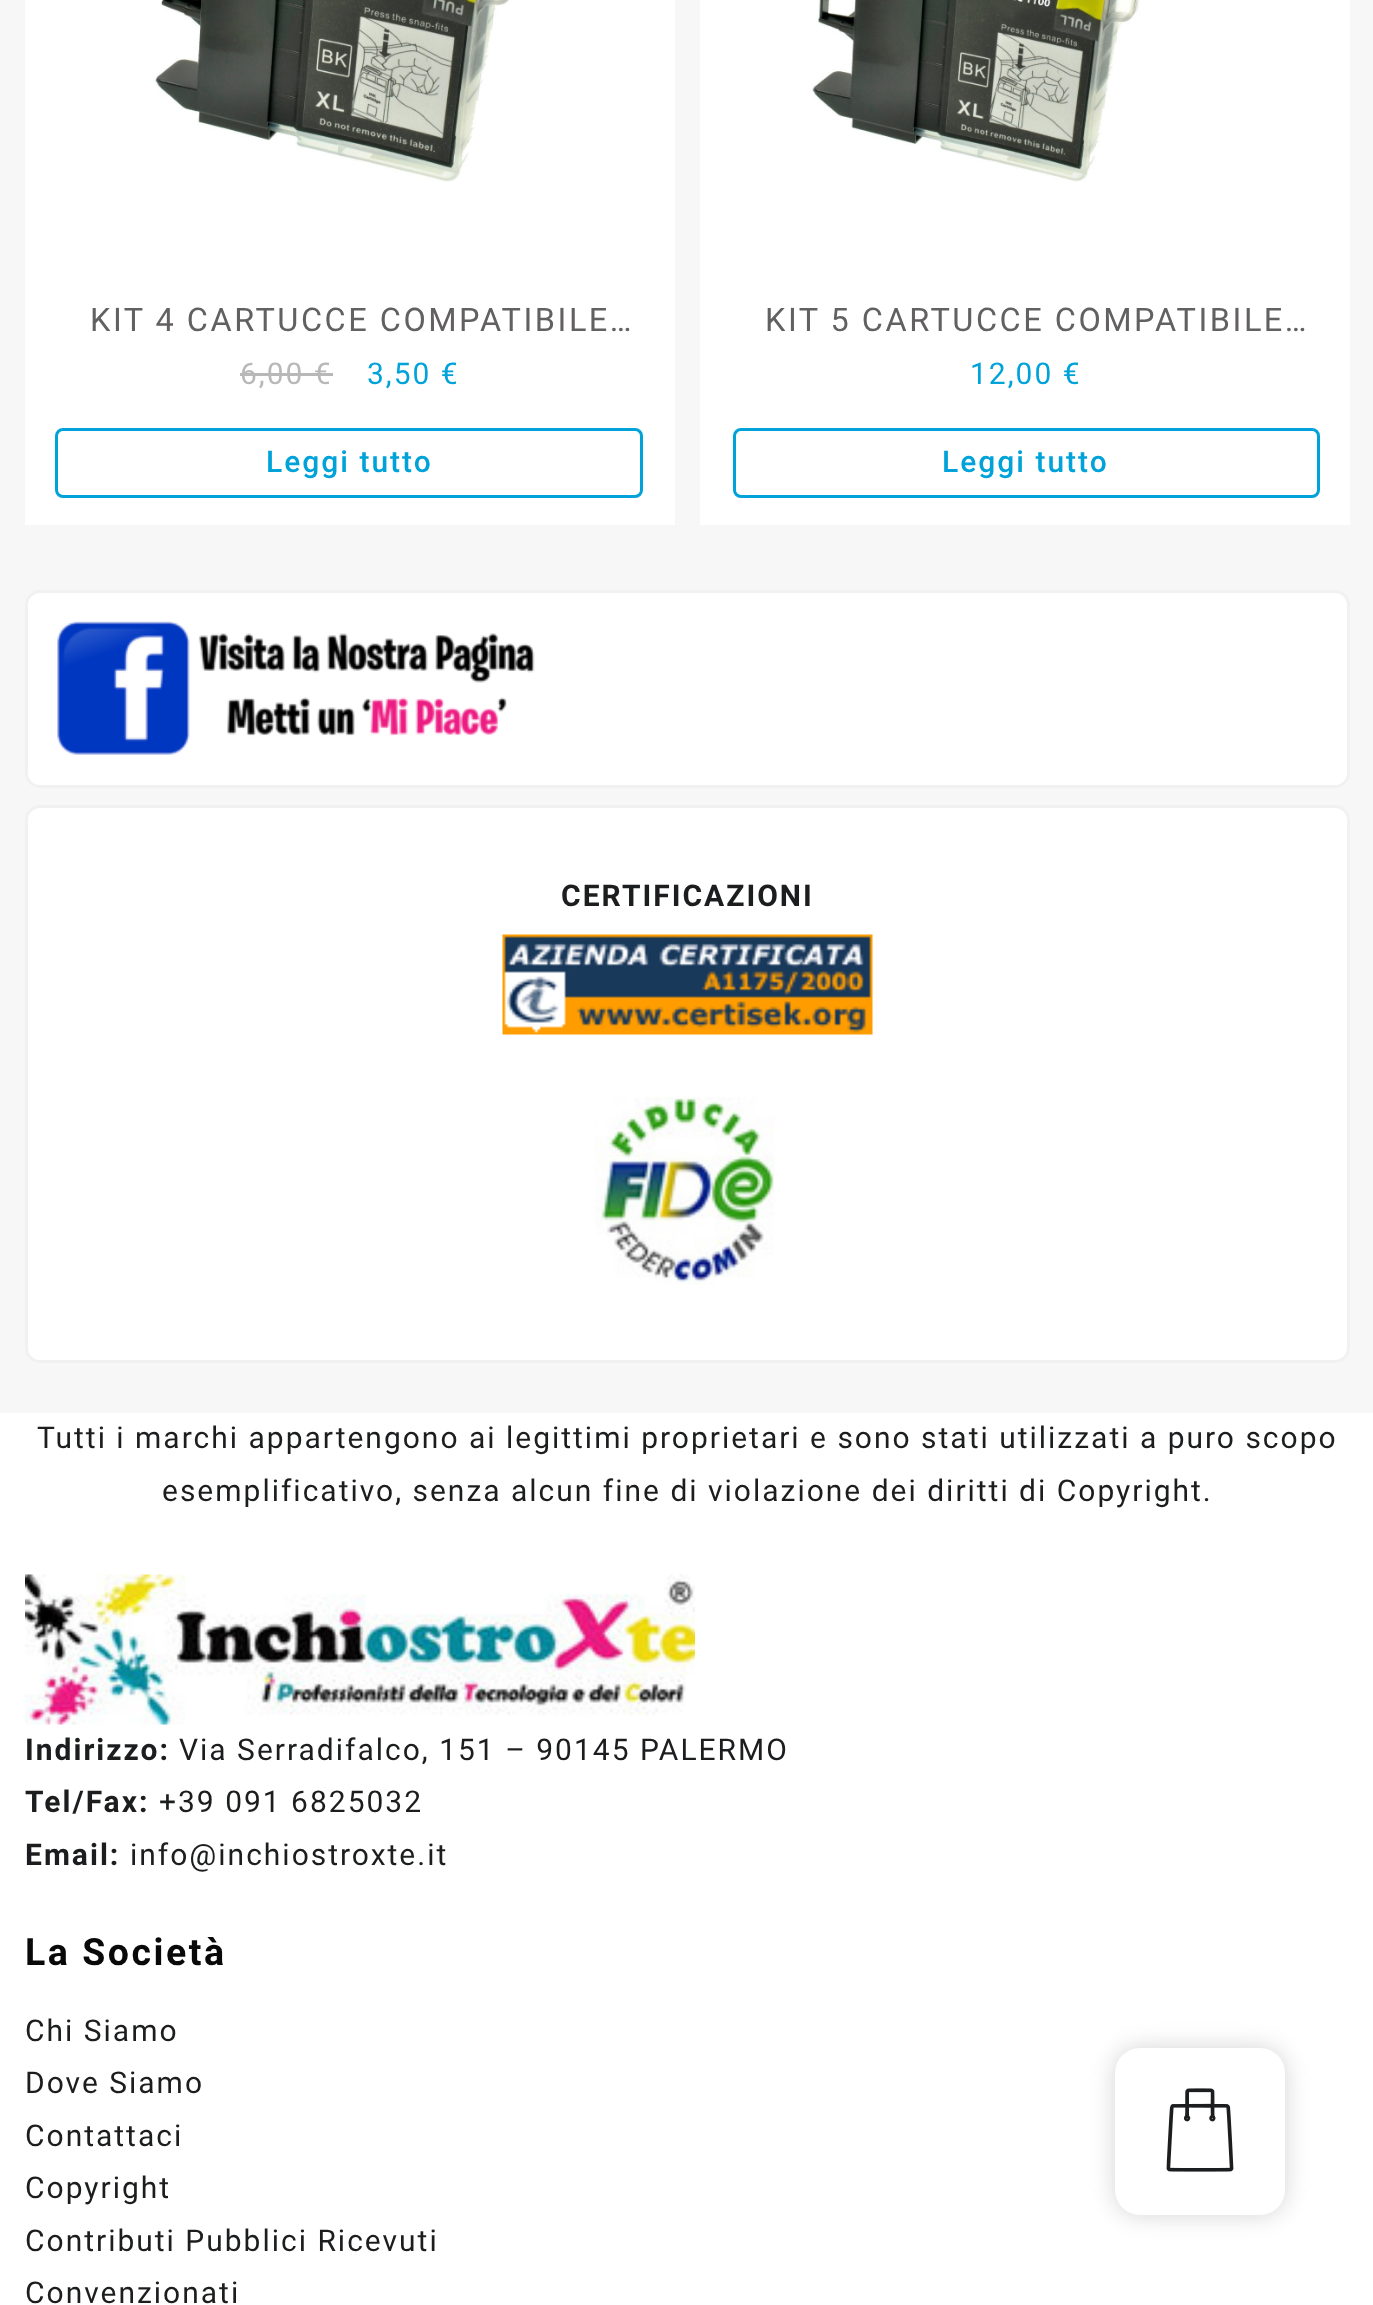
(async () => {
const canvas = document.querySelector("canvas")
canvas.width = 1373
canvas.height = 2305
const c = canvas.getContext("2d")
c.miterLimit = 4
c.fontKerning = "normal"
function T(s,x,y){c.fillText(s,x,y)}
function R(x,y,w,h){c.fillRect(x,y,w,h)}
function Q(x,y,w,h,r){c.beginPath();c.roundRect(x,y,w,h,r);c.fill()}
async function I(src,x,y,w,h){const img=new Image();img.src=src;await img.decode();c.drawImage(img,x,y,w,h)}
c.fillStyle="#f7f7f7"
R(0,0,1373,2305)
c.fillStyle="#fff"
R(25,0,650,525)
await I("1.png",153,0,356,182)
c.letterSpacing="2.5px"
c.font="32.5px Roboto"
c.fillStyle="#626060"
T("KIT 4 CARTUCCE COMPATIBILE…",90,331)
c.letterSpacing="2px"
c.font="30px Roboto"
c.fillStyle="#b8b8b8"
T("6,00 €",240,384)
R(240,373,93,3)
c.fillStyle="#00a3d9"
T("3,50 €",367,384)
c.beginPath()
c.roundRect(56.5,429.5,585,67,6.5)
c.strokeStyle="#00a3d9"
c.lineWidth=3
c.stroke()
c.font="500 30px Roboto"
T("Leggi tutto",266,472)
c.fillStyle="#fff"
R(700,0,650,525)
await I("2.png",812,0,328,182)
c.letterSpacing="2.5px"
c.font="32.5px Roboto"
c.fillStyle="#626060"
T("KIT 5 CARTUCCE COMPATIBILE…",765,331)
c.letterSpacing="2px"
c.font="30px Roboto"
c.fillStyle="#00a3d9"
T("12,00 €",970,384)
c.beginPath()
c.roundRect(734.5,429.5,584,67,6.5)
c.stroke()
c.font="500 30px Roboto"
T("Leggi tutto",942,472)
c.fillStyle="#fff"
c.beginPath()
c.roundRect(26.5,591.5,1322,195,13.5)
c.fill()
c.strokeStyle="#f1f1f1"
c.stroke()
await I("3.png",57,621,478,134)
c.beginPath()
c.roundRect(26.5,806.5,1322,555,13.5)
c.fill()
c.stroke()
c.font="bold 30px Roboto"
c.fillStyle="#1c1d1e"
T("CERTIFICAZIONI",561,906)
await I("4.png",502,934,371,101)
await I("5.png",595,1097,180,188)
c.fillStyle="#fff"
R(0,1413,1373,892)
c.font="30px Roboto"
c.fillStyle="#1c1d1e"
T("Tutti i marchi appartengono ai legittimi proprietari e sono stati utilizzati a puro scopo",37,1448)
T("esemplificativo, senza alcun fine di violazione dei diritti di Copyright.",162,1501)
await I("6.png",25,1574,670,151)
c.font="bold 30px Roboto"
T("Indirizzo:",25,1760)
c.font="30px Roboto"
T("Via Serradifalco, 151 – 90145 PALERMO",179,1760)
c.font="bold 30px Roboto"
T("Tel/Fax:",25,1812)
c.font="30px Roboto"
T("+39 091 6825032",159,1812)
c.font="bold 30px Roboto"
T("Email:",25,1865)
c.font="30px Roboto"
T("info@inchiostroxte.it",130,1865)
c.letterSpacing="2.5px"
c.font="bold 37.5px Roboto"
c.fillStyle="#090909"
T("La Società",25,1965)
c.letterSpacing="2px"
c.font="30px Roboto"
c.fillStyle="#1c1d1e"
T("Chi Siamo",25,2041)
T("Dove Siamo",25,2093)
T("Contattaci",25,2146)
T("Copyright",25,2198)
T("Contributi Pubblici Ricevuti",25,2251)
T("Convenzionati",25,2303)
c.fillStyle="#b7b7b799"
c.filter="blur(12.5px)"
c.beginPath()
c.roundRect(1115,2048,170,167,25)
c.fill()
c.filter="none"
c.fillStyle="#fff"
Q(1115,2048,170,167,25)
await I("7.png",1166,2088,68,84)
})()
